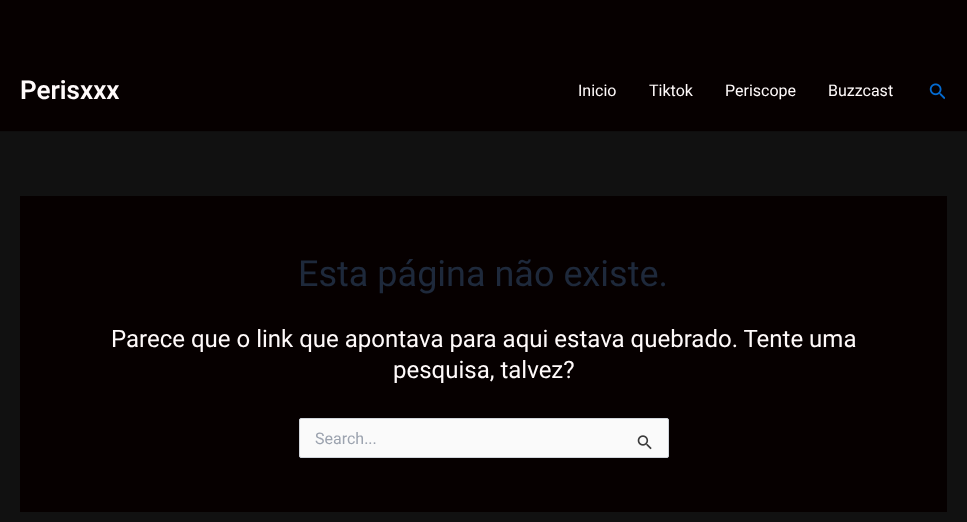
(async () => {
const canvas = document.querySelector("canvas")
canvas.width = 967
canvas.height = 522
const c = canvas.getContext("2d")
c.miterLimit = 4
c.fontKerning = "normal"
function T(s,x,y){c.fillText(s,x,y)}
function R(x,y,w,h){c.fillRect(x,y,w,h)}
async function I(src,x,y,w,h){const img=new Image();img.src=src;await img.decode();c.drawImage(img,x,y,w,h)}
c.fillStyle="#111"
R(0,0,967,522)
c.fillStyle="#060000"
R(0,0,967,131)
c.fillStyle="#0f0e0e"
R(0,131,967,1)
c.font="600 26px Roboto"
c.fillStyle="#fffafa"
T("Perisxxx",20,99)
c.font="16px Roboto"
T("Inicio",578,96)
T("Tiktok",649,96)
T("Periscope",725,96)
T("Buzzcast",828,96)
await I("1.png",929,83,16,17)
c.fillStyle="#060000"
R(20,196,927,316)
c.font="36px Roboto"
c.fillStyle="#1e293b"
T("Esta página não existe.",298,286)
c.font="24px Roboto"
c.fillStyle="#fffafa"
T("Parece que o link que apontava para aqui estava quebrado. Tente uma",111,347)
T("pesquisa, talvez?",393,378)
c.fillStyle="#fafafa"
c.beginPath()
c.roundRect(299.5,418.5,369,39,1.5)
c.fill()
c.strokeStyle="#d1d5db"
c.stroke()
c.font="16px Roboto"
c.fillStyle="#9ca3af"
T("Search...",315,444)
await I("2.png",637,435,15,15)
})()
